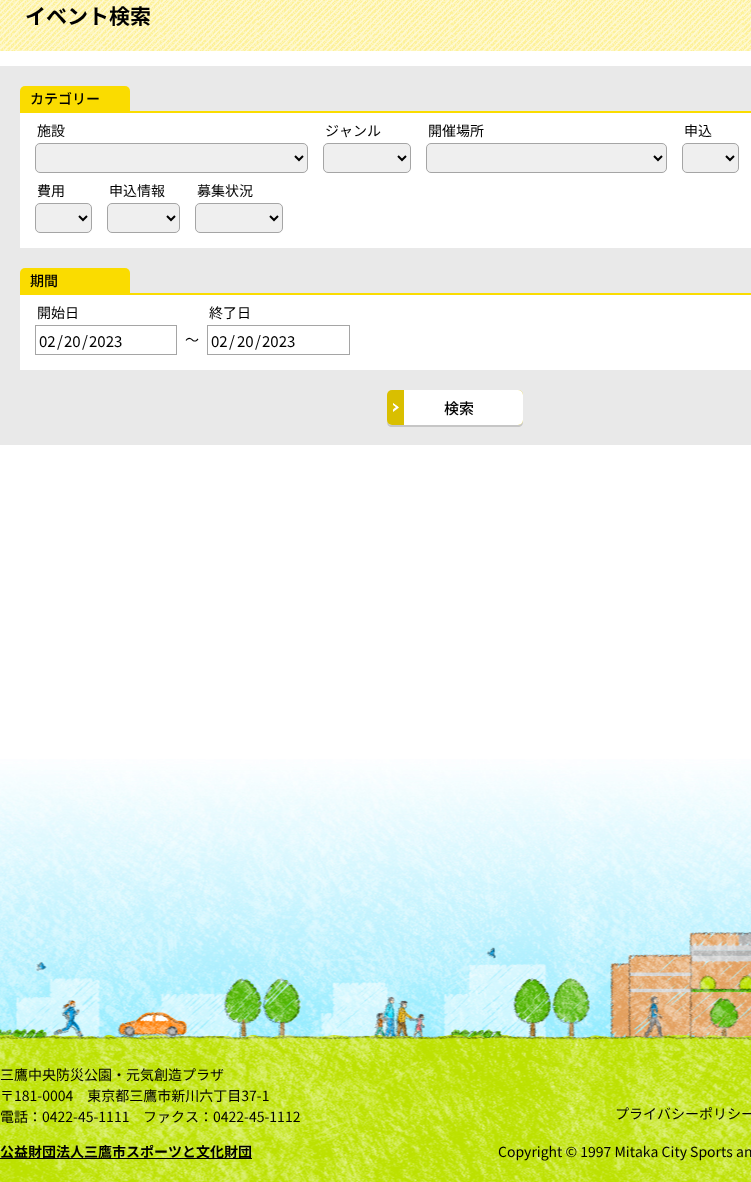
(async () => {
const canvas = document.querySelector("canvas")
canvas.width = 751
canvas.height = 1182
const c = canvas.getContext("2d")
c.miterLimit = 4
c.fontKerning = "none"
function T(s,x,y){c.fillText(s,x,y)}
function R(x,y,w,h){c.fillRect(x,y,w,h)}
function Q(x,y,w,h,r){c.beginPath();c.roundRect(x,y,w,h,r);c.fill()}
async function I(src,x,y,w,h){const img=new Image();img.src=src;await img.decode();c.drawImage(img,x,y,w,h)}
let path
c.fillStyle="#fff"
R(0,0,751,1182)
await I("1.png",0,759,751,423)
await I("2.png",0,0,751,51)
c.font="bold 21px Noto Sans JP"
c.fillStyle="#000"
T("イベント検索",25,24)
c.fillStyle="#e9e9e9"
R(0,66,751,379)
c.fillStyle="#fadc00"
c.beginPath()
c.roundRect(20,86,110,25,[5,5,0,0])
c.fill()
c.font="500 14px Noto Sans JP"
c.fillStyle="#000"
T("カテゴリー",30,104)
c.fillStyle="#fff"
R(20,113,731,135)
c.fillStyle="#fadc00"
R(20,111,731,2)
c.font="14px Noto Sans JP"
c.fillStyle="#000"
T("施設",37,136)
c.fillStyle="#efefef"
c.beginPath()
c.roundRect(35.5,143.5,272,29,4.5)
c.fill()
c.strokeStyle="#a5a5a5"
c.stroke()
path = new Path2D("M295 156l4 4l4-4")
c.strokeStyle="#000"
c.lineWidth=2
c.stroke(path)
c.fillStyle="#000"
T("ジャンル",325,136)
c.fillStyle="#efefef"
c.beginPath()
c.roundRect(323.5,143.5,87,29,4.5)
c.fill()
c.strokeStyle="#a5a5a5"
c.lineWidth=1
c.stroke()
path = new Path2D("M398 156l4 4l4-4")
c.strokeStyle="#000"
c.lineWidth=2
c.stroke(path)
c.fillStyle="#000"
T("開催場所",428,136)
c.fillStyle="#efefef"
c.beginPath()
c.roundRect(426.5,143.5,240,29,4.5)
c.fill()
c.strokeStyle="#a5a5a5"
c.lineWidth=1
c.stroke()
path = new Path2D("M654 156l4 4l4-4")
c.strokeStyle="#000"
c.lineWidth=2
c.stroke(path)
c.fillStyle="#000"
T("申込",684,136)
c.fillStyle="#efefef"
c.beginPath()
c.roundRect(682.5,143.5,56,29,4.5)
c.fill()
c.strokeStyle="#a5a5a5"
c.lineWidth=1
c.stroke()
path = new Path2D("M726 156l4 4l4-4")
c.strokeStyle="#000"
c.lineWidth=2
c.stroke(path)
c.fillStyle="#000"
T("費用",37,196)
c.fillStyle="#efefef"
c.beginPath()
c.roundRect(35.5,203.5,56,29,4.5)
c.fill()
c.strokeStyle="#a5a5a5"
c.lineWidth=1
c.stroke()
path = new Path2D("M79 216l4 4l4-4")
c.strokeStyle="#000"
c.lineWidth=2
c.stroke(path)
c.fillStyle="#000"
T("申込情報",109,196)
c.fillStyle="#efefef"
c.beginPath()
c.roundRect(107.5,203.5,72,29,4.5)
c.fill()
c.strokeStyle="#a5a5a5"
c.lineWidth=1
c.stroke()
path = new Path2D("M167 216l4 4l4-4")
c.strokeStyle="#000"
c.lineWidth=2
c.stroke(path)
c.fillStyle="#000"
T("募集状況",197,196)
c.fillStyle="#efefef"
c.beginPath()
c.roundRect(195.5,203.5,87,29,4.5)
c.fill()
c.strokeStyle="#a5a5a5"
c.lineWidth=1
c.stroke()
path = new Path2D("M270 216l4 4l4-4")
c.strokeStyle="#000"
c.lineWidth=2
c.stroke(path)
c.fillStyle="#fadc00"
c.beginPath()
c.roundRect(20,268,110,25,[5,5,0,0])
c.fill()
c.font="500 14px Noto Sans JP"
c.fillStyle="#000"
T("期間",30,286)
c.fillStyle="#fff"
R(20,295,731,75)
c.fillStyle="#fadc00"
R(20,293,731,2)
c.font="14px Noto Sans JP"
c.fillStyle="#000"
T("開始日",37,318)
c.strokeStyle="#a5a5a5"
c.lineWidth=1
c.strokeRect(35.5,325.5,141,29)
c.font="15px Noto Sans JP"
T("02",39,347)
T("/",57,347)
T("20",64,347)
T("/",82,347)
T("2023",89,347)
c.font="14px Noto Sans JP"
T("～",185,345)
T("終了日",209,318)
c.strokeRect(207.5,325.5,142,29)
c.font="15px Noto Sans JP"
T("02",211,347)
T("/",229,347)
T("20",237,347)
T("/",255,347)
T("2023",262,347)
c.fillStyle="#c6c6c6"
path = new Path2D("M387 420v2c0 3 2 5 5 5h126c3 0 5-2 5-5v-2c0 3-2 5-5 5h-126c-3 0-5-2-5-5z")
c.fill(path)
c.fillStyle="#d9bf00"
Q(387,390,136,35,5)
await I("3.png",393,403,6,9)
c.fillStyle="#fff"
c.beginPath()
c.roundRect(404,390,119,35,[0,5,5,0])
c.fill()
c.font="500 15px Noto Sans JP"
c.fillStyle="#000"
T("検索",444,414)
c.font="14px Noto Sans JP"
T("三鷹中央防災公園・元気創造プラザ",0,1080)
T("〒181-0004　東京都三鷹市新川六丁目37-1",0,1101)
T("電話：0422-45-1111",0,1122)
T("ファクス：0422-45-1112",143,1122)
R(0,1158,252,1)
c.font="bold 14px Noto Sans JP"
T("公益財団法人三鷹市スポーツと文化財団",0,1157)
c.font="14px Noto Sans JP"
T("プライバシーポリシー",615,1119)
T("Copyright © 1997 Mitaka City Sports an",498,1157)
})()
